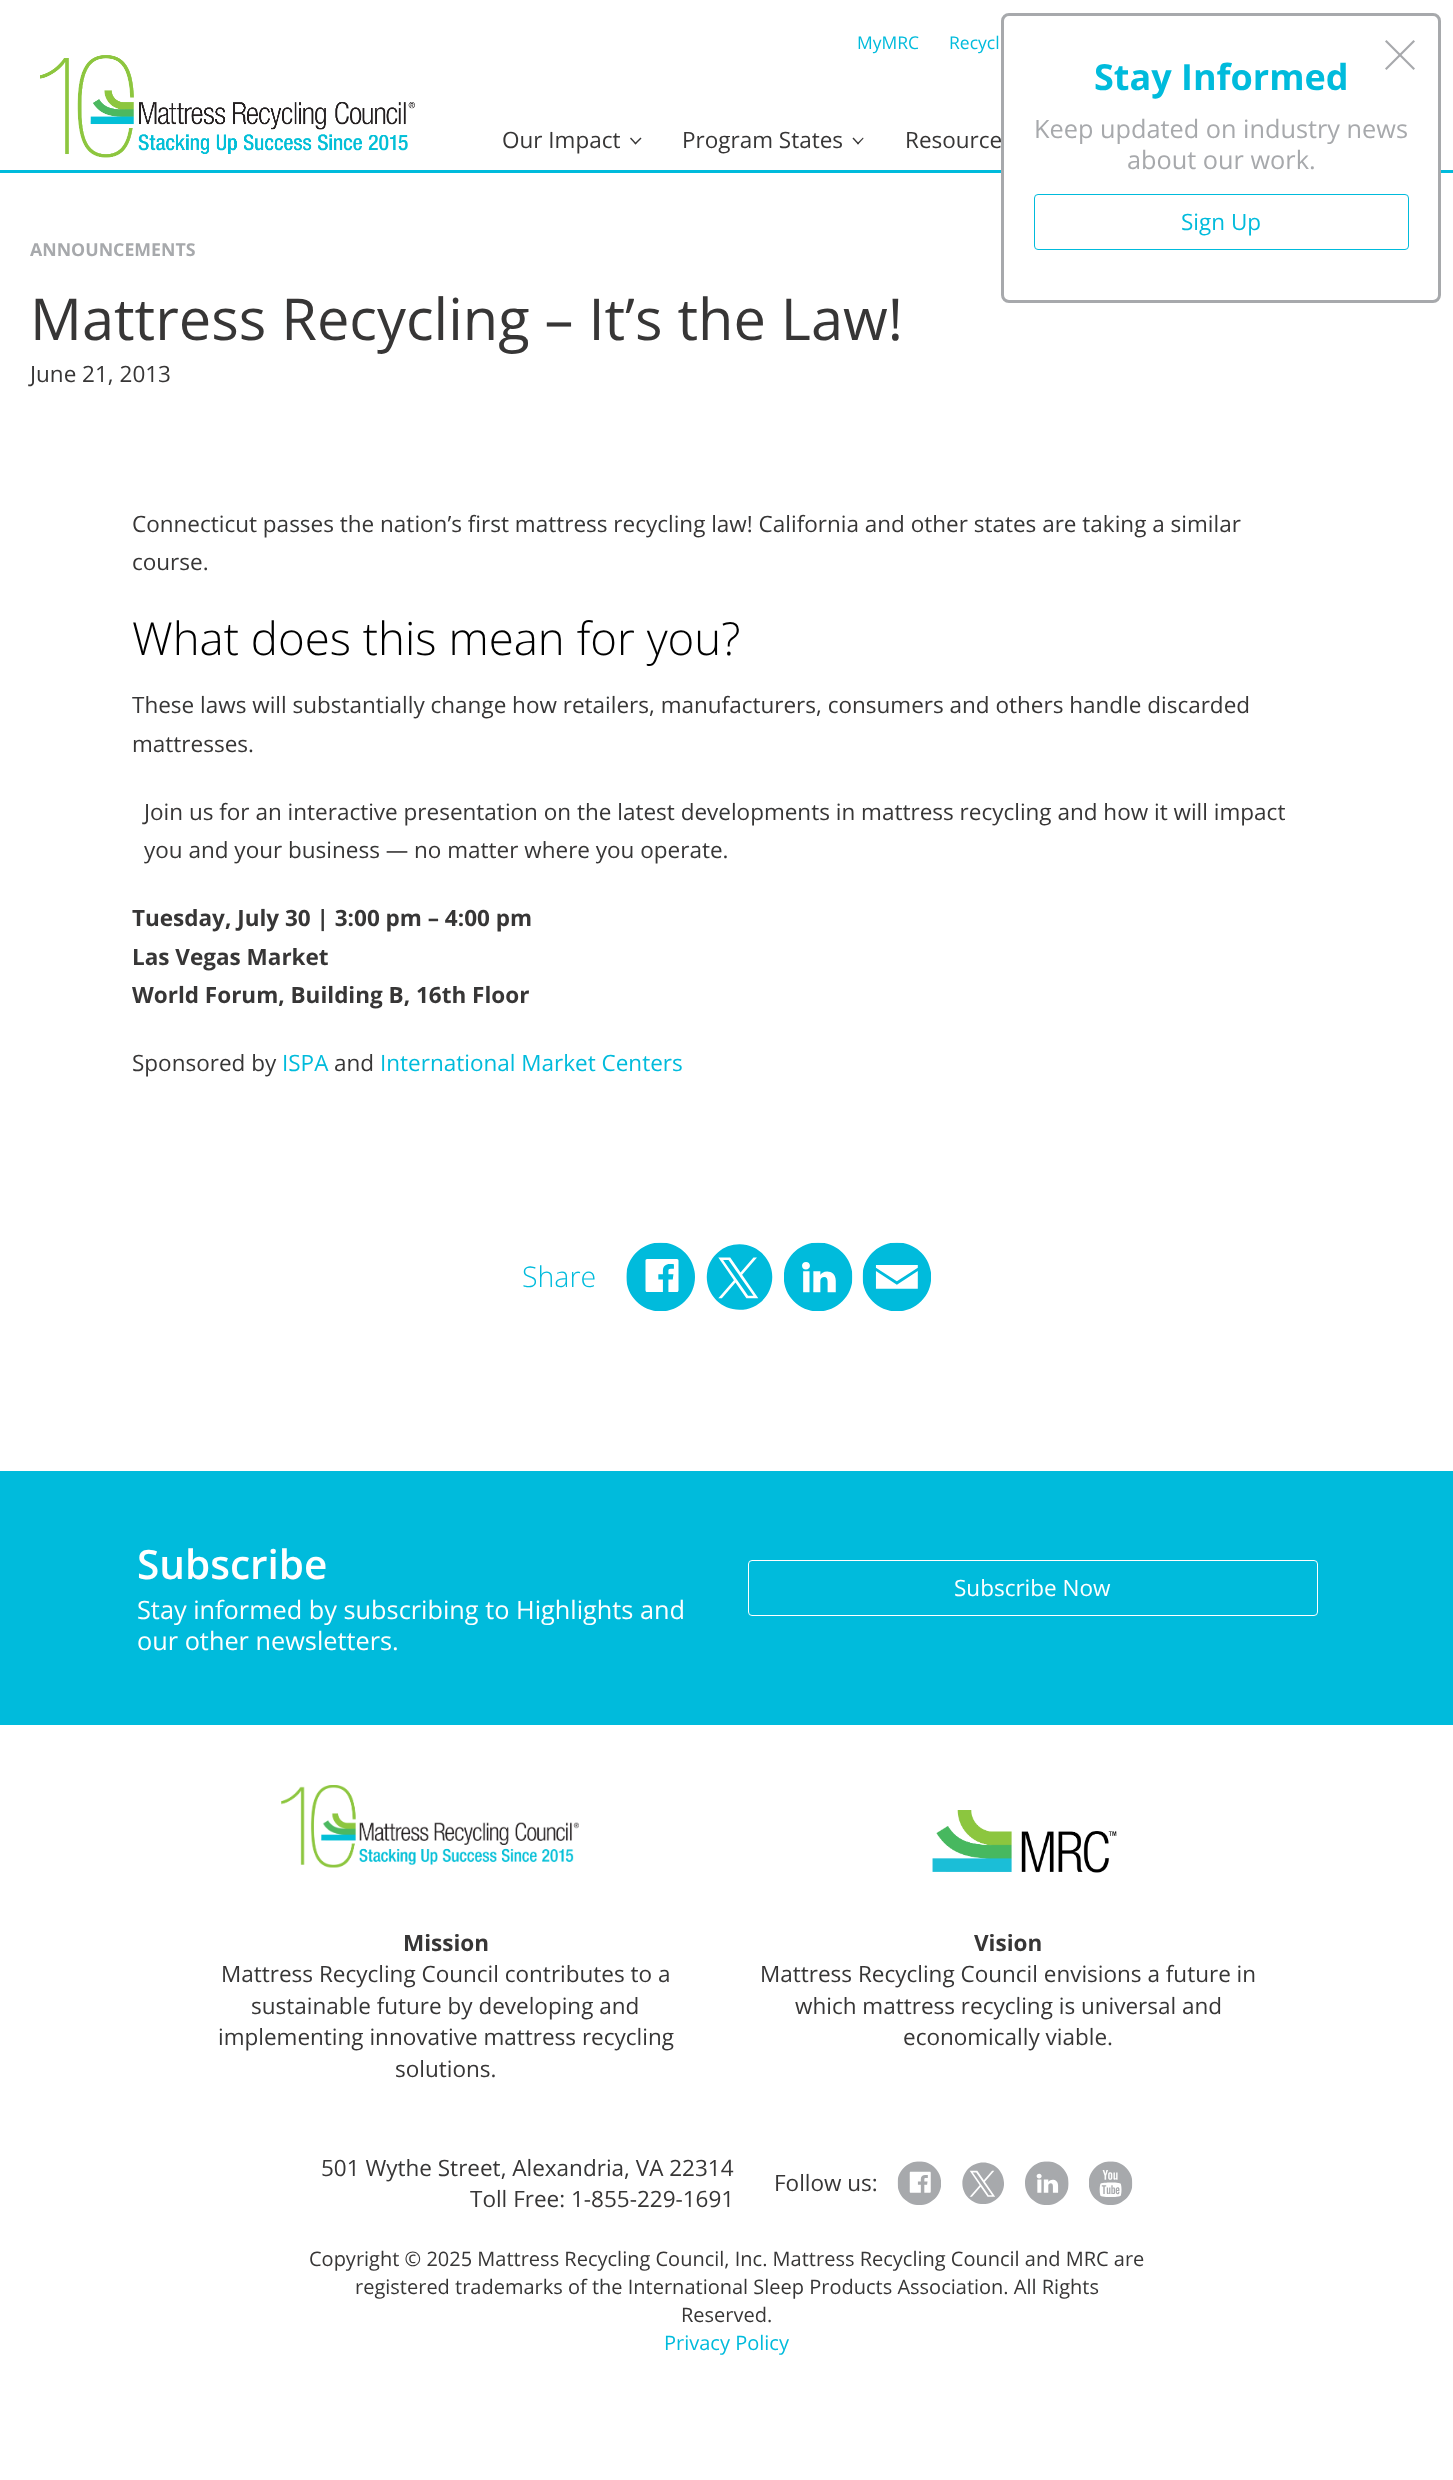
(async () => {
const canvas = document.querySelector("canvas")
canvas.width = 1453
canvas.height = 2480
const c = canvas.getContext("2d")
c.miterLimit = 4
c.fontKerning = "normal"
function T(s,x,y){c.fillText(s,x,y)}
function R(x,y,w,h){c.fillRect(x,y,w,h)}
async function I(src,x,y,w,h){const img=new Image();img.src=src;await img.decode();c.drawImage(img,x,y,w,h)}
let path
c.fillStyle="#fff"
R(0,0,1453,2480)
c.fillStyle="#00bbdc"
R(0,170,1453,3)
c.font="17.5px Open Sans"
T("MyMRC",857,49)
T("Recycl",949,49)
await I("1.png",40,55,375,103)
c.font="22.5px Open Sans"
c.fillStyle="#373636"
T("Our Impact",502,148)
path = new Path2D("M641.5 138.5l-6 6l-1-1l6-6z")
c.fill(path)
path = new Path2D("M636.5 143.5l-1 1l-5.5-6l1-1z")
c.fill(path)
T("Program States",682,148)
path = new Path2D("M863.5 138.5l-5.5 6l-1-1l6-6z")
c.fill(path)
path = new Path2D("M859 143.5l-1 1l-5.5-6l1-1z")
c.fill(path)
T("Resource",905,148)
c.fillStyle="#fff"
c.beginPath()
c.roundRect(1002.5,14.5,437,287,6.5)
c.fill()
c.strokeStyle="#a7a9ac"
c.lineWidth=3
c.stroke()
c.fillStyle="#a7a9ac"
path = new Path2D("M1413.5 40l1.5 1.5l-28.5 28.5l-1.5-1.5z")
c.fill(path)
path = new Path2D("M1385 41.5l1.5-1.5l28.5 28.5l-1.5 1.5z")
c.fill(path)
c.font="bold 36px Open Sans"
c.fillStyle="#00bbdc"
T("Stay Informed",1094,90)
c.font="25.3px Open Sans"
c.fillStyle="#a7a9ac"
T("Keep updated on industry news",1034,138)
T("about our work.",1127,169)
c.beginPath()
c.roundRect(1034.5,194.5,374,55,3.5)
c.strokeStyle="#00bbdc"
c.lineWidth=1
c.stroke()
c.font="22.5px Open Sans"
c.fillStyle="#00bbdc"
T("Sign Up",1181,230)
c.font="bold 17.75px Open Sans"
c.fillStyle="#a7a9ac"
T("ANNOUNCEMENTS",30,256)
c.font="57.75px Open Sans"
c.fillStyle="#373636"
T("Mattress Recycling – It’s the Law!",30,340)
c.font="22.5px Open Sans"
T("June 21, 2013",30,382)
T("Connecticut passes the nation’s first mattress recycling law! California and other states are taking a similar",132,532)
T("course.",132,570)
c.font="300 45.6px Open Sans"
c.fillStyle="#000"
T("What does this mean for you?",132,655)
c.font="22.5px Open Sans"
c.fillStyle="#373636"
T("These laws will substantially change how retailers, manufacturers, consumers and others handle discarded",132,713)
T("mattresses.",132,752)
T("Join us for an interactive presentation on the latest developments in mattress recycling and how it will impact",144,820)
T("you and your business — no matter where you operate.",144,858)
c.font="bold 22.5px Open Sans"
T("Tuesday, July 30 | 3:00 pm – 4:00 pm",132,926)
T("Las Vegas Market",132,965)
T("World Forum, Building B, 16th Floor",132,1003)
c.font="22.5px Open Sans"
T("Sponsored by",132,1071)
c.fillStyle="#00bbdc"
T("ISPA",282,1071)
c.fillStyle="#373636"
T("and",334,1071)
c.fillStyle="#00bbdc"
T("International Market Centers",380,1071)
c.font="300 28.5px Open Sans"
T("Share",522,1287)
await I("2.png",626,1242,69,69)
await I("3.png",706,1244,67,66)
await I("4.png",784,1242,69,69)
await I("5.png",862,1242,69,69)
R(0,1471,1453,254)
c.font="600 40.5px Open Sans"
c.fillStyle="#fff"
T("Subscribe",137,1579)
c.font="25.3px Open Sans"
T("Stay informed by subscribing to Highlights and",137,1619)
T("our other newsletters.",137,1650)
c.beginPath()
c.roundRect(748.5,1560.5,569,55,3.5)
c.strokeStyle="#fff"
c.stroke()
c.font="22.5px Open Sans"
T("Subscribe Now",954,1596)
await I("6.png",281,1785,298,83)
await I("7.png",932,1810,185,63)
c.font="bold 22.5px Open Sans"
c.fillStyle="#373636"
T("Mission",403,1951)
c.font="22.5px Open Sans"
T("Mattress Recycling Council contributes to a",221,1982)
T("sustainable future by developing and",251,2014)
T("implementing innovative mattress recycling",218,2045)
T("solutions.",395,2077)
c.font="bold 22.5px Open Sans"
T("Vision",974,1951)
c.font="22.5px Open Sans"
T("Mattress Recycling Council envisions a future in",760,1982)
T("which mattress recycling is universal and",795,2014)
T("economically viable.",903,2045)
T("501 Wythe Street, Alexandria, VA 22314",321,2176)
T("Toll Free: 1-855-229-1691",470,2207)
T("Follow us:",774,2191)
await I("8.png",897,2161,44,44)
await I("9.png",962,2162,42,42)
await I("10.png",1025,2161,44,44)
await I("11.png",1089,2161,44,44)
c.font="20px Open Sans"
T("Copyright © 2025 Mattress Recycling Council, Inc. Mattress Recycling Council and MRC are",309,2266)
T("registered trademarks of the International Sleep Products Association. All Rights",355,2294)
T("Reserved.",681,2322)
c.fillStyle="#00bbdc"
T("Privacy Policy",664,2350)
})()
